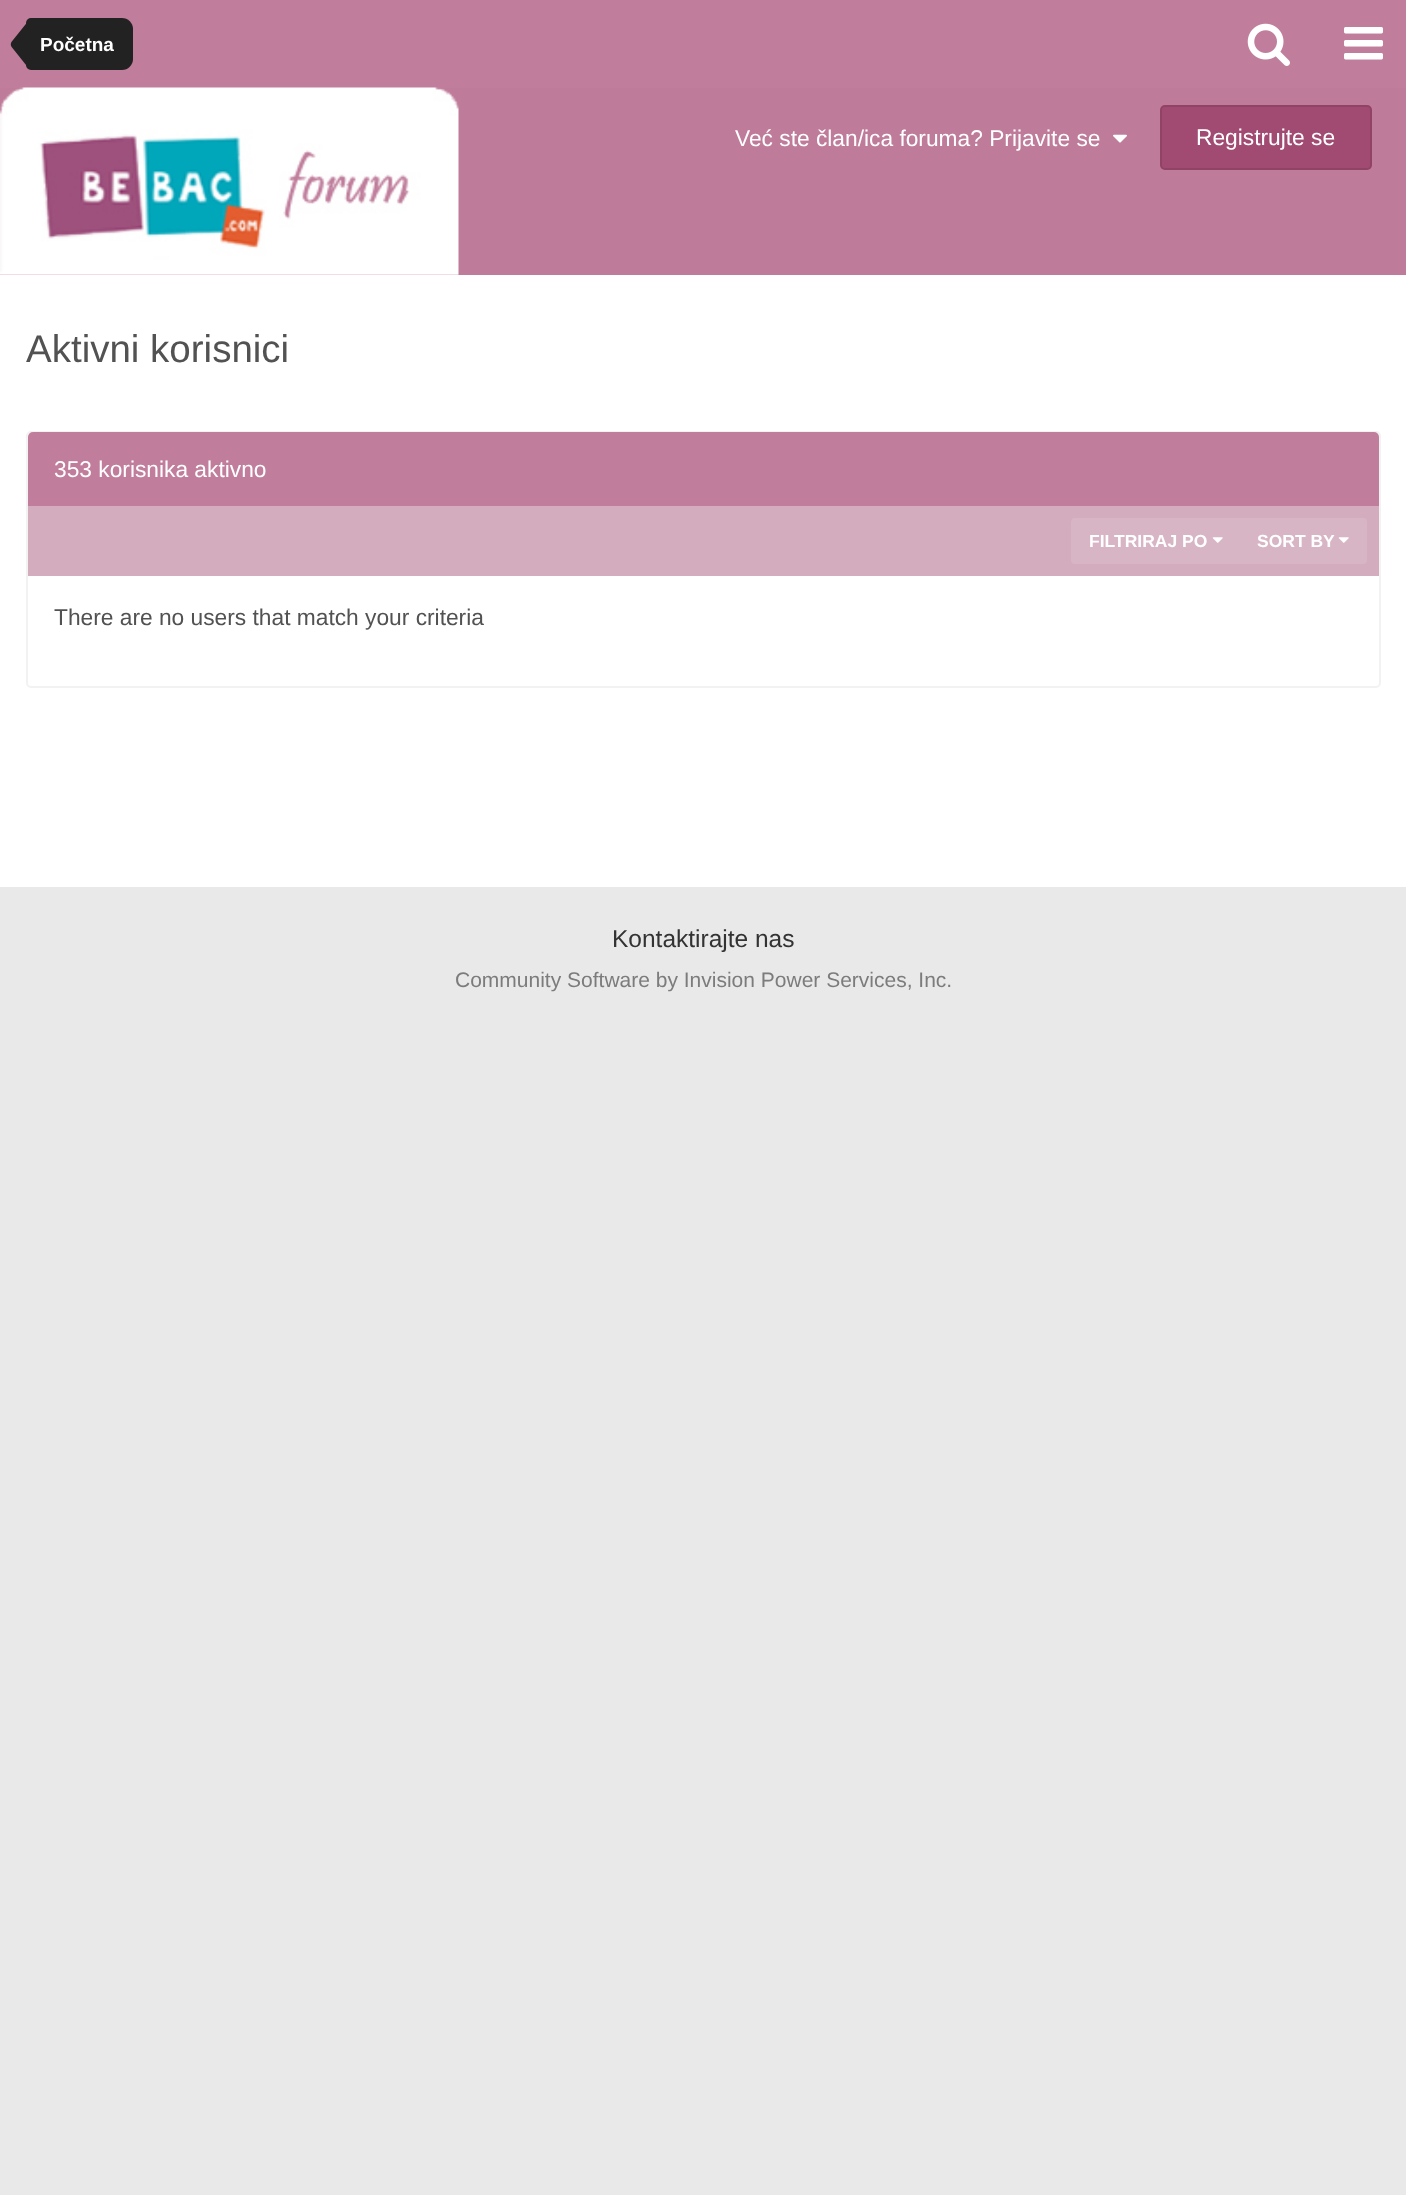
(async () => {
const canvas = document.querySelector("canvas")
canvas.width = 1406
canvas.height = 2195
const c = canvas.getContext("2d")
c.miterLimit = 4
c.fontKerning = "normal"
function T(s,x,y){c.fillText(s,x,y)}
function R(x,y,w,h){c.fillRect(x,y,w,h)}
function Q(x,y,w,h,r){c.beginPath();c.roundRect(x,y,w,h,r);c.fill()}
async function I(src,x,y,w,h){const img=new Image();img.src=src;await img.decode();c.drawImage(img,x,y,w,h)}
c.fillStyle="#e9e9e9"
R(0,0,1406,2195)
c.fillStyle="#c07e9c"
R(0,0,1406,88)
c.fillStyle="#222"
c.beginPath()
c.roundRect(26,18,107,52,[5,11,11,5])
c.fill()
await I("1.png",10,24,17,42)
c.font="bold 19px Liberation Sans"
c.fillStyle="#fff"
T("Početna",40,51)
await I("2.png",1247,23,43,43)
await I("3.png",1344,27,39,33)
c.fillStyle="#bf7b9a"
R(0,88,1406,187)
await I("4.png",0,87,459,188)
c.font="22.75px Liberation Sans"
c.fillStyle="#fff"
T("Već ste član/ica foruma? Prijavite se",735,146)
await I("5.png",1113,134,14,9)
c.fillStyle="#a24b72"
Q(1160,105,212,65,5)
c.beginPath()
c.roundRect(1161,106,210,63,4)
c.strokeStyle="#0000001a"
c.lineWidth=2
c.stroke()
c.fillStyle="#fff"
T("Registrujte se",1196,145)
R(0,275,1406,612)
c.font="38.5px Liberation Sans"
c.fillStyle="#525252"
T("Aktivni korisnici",26,362)
c.beginPath()
c.roundRect(27,432,1353,255,4)
c.strokeStyle="#f2f2f2"
c.stroke()
c.fillStyle="#c07e9c"
c.beginPath()
c.roundRect(28,432,1351,74,[5,5,0,0])
c.fill()
c.font="22.75px Liberation Sans"
c.fillStyle="#fff"
T("353 korisnika aktivno",54,477)
c.fillStyle="#d3adbe"
R(28,506,1351,70)
c.fillStyle="#d7b5c5"
c.beginPath()
c.roundRect(1071,518,168,46,[4,0,0,4])
c.fill()
c.font="bold 17.5px Liberation Sans"
c.fillStyle="#fff"
T("FILTRIRAJ PO",1089,547)
await I("6.png",1212,537,11,6)
c.fillStyle="#d7b5c5"
c.beginPath()
c.roundRect(1239,518,128,46,[0,4,4,0])
c.fill()
c.fillStyle="#fff"
T("SORT BY",1257,547)
await I("6.png",1338,537,11,6)
c.font="22.75px Liberation Sans"
c.fillStyle="#525252"
T("There are no users that match your criteria",54,625)
c.font="24.5px Liberation Sans"
c.fillStyle="#333"
T("Kontaktirajte nas",612,947)
c.font="21px Liberation Sans"
c.fillStyle="#7c7c7c"
T("Community Software by Invision Power Services, Inc.",455,987)
})()
